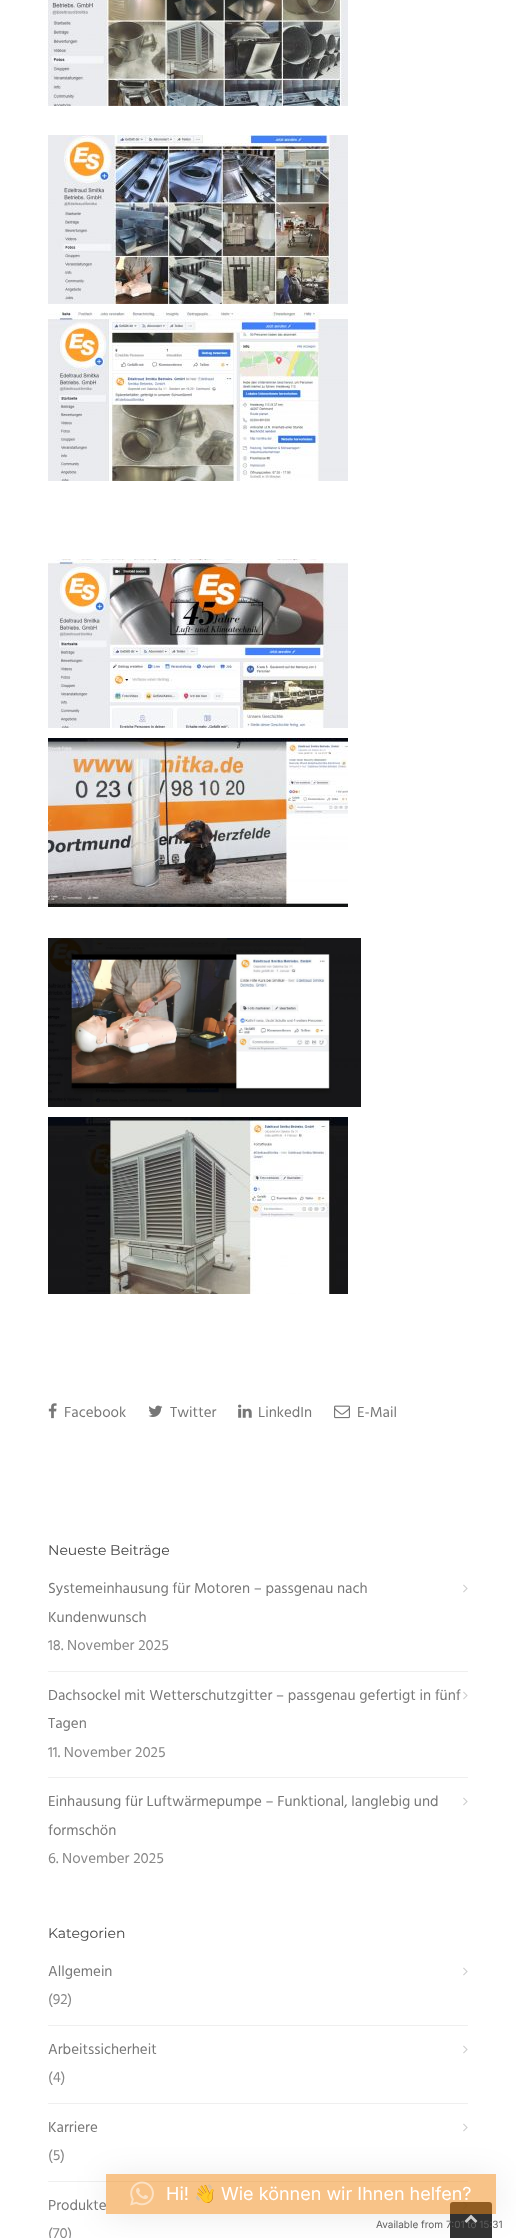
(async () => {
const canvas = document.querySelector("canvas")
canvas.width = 516
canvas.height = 2238
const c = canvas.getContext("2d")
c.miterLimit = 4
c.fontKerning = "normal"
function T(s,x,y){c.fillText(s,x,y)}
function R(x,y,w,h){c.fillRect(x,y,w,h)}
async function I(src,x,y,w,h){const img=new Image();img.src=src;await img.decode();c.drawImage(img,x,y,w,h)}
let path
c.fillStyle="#fff"
R(0,0,516,2238)
await I("1.png",48,0,300,106)
await I("2.png",48,135,300,169)
await I("3.png",48,312,300,169)
await I("4.png",48,559,300,169)
await I("5.png",48,738,300,169)
await I("6.png",48,938,313,169)
await I("7.png",48,1117,300,177)
await I("8.png",48,1403,9,16)
c.font="15px Hind"
c.fillStyle="#777"
T("Facebook",64,1417)
await I("9.png",148,1405,15,12)
T("Twitter",170,1417)
await I("10.png",238,1404,14,14)
T("LinkedIn",258,1417)
await I("11.png",334,1405,16,14)
T("E-Mail",357,1417)
c.font="14px Montserrat"
c.fillStyle="#444"
T("Neueste Beiträge",48,1555)
c.fillStyle="#efefef"
R(48,1671,420,1)
c.font="15px Hind"
c.fillStyle="#777"
T("Systemeinhausung für Motoren – passgenau nach",48,1593)
T("Kundenwunsch",48,1622)
await I("12.png",463,1584,5,9)
c.fillStyle="#888"
T("18. November 2025",48,1650)
c.fillStyle="#efefef"
R(48,1777,420,1)
c.fillStyle="#777"
T("Dachsockel mit Wetterschutzgitter – passgenau gefertigt in fünf",48,1700)
T("Tagen",48,1728)
await I("12.png",463,1691,5,9)
c.fillStyle="#888"
T("11. November 2025",48,1757)
c.fillStyle="#777"
T("Einhausung für Luftwärmepumpe – Funktional, langlebig und",48,1806)
T("formschön",48,1835)
await I("12.png",463,1797,5,9)
c.fillStyle="#888"
T("6. November 2025",48,1863)
c.font="14px Montserrat"
c.fillStyle="#444"
T("Kategorien",48,1938)
c.fillStyle="#efefef"
R(48,2025,420,1)
c.font="15px Hind"
c.fillStyle="#777"
T("Allgemein",48,1976)
await I("12.png",463,1967,5,9)
c.fillStyle="#888"
T("(92)",48,2004)
c.fillStyle="#efefef"
R(48,2103,420,1)
c.fillStyle="#777"
T("Arbeitssicherheit",48,2054)
await I("12.png",463,2045,5,9)
c.fillStyle="#888"
T("(4)",48,2082)
c.fillStyle="#efefef"
R(48,2181,420,1)
c.fillStyle="#777"
T("Karriere",48,2132)
await I("12.png",463,2123,5,9)
c.fillStyle="#888"
T("(5)",48,2160)
c.fillStyle="#777"
T("Produkte",48,2210)
await I("12.png",463,2201,5,9)
c.fillStyle="#888"
T("(70)",48,2238)
c.fillStyle="#000000cc"
c.beginPath()
c.roundRect(450,2202,42,36,[3,3,0,0])
c.fill()
await I("14.png",464,2214,14,9)
c.save()
path = new Path2D("M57 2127h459v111h-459zm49 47h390v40h-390z")
c.clip(path,"evenodd")
c.fillStyle="#00000014"
c.filter="blur(16px)"
c.beginPath()
c.rect(106,2176,390,40)
c.fill()
c.filter="none"
c.restore()
c.fillStyle="#f1881280"
R(106,2174,390,40)
await I("13.png",130,2181,24,25)
c.font="18px Inter"
c.fillStyle="#fff"
T("Hi!",166,2200)
c.font="18px Noto Color Emoji"
T("👋",194,2200)
c.font="18px Inter"
T("Wie können wir Ihnen helfen?",221,2200)
c.font="10px Inter"
c.fillStyle="#5e5e5e"
T("Available from 7:01 to 15:31",376,2228)
})()
